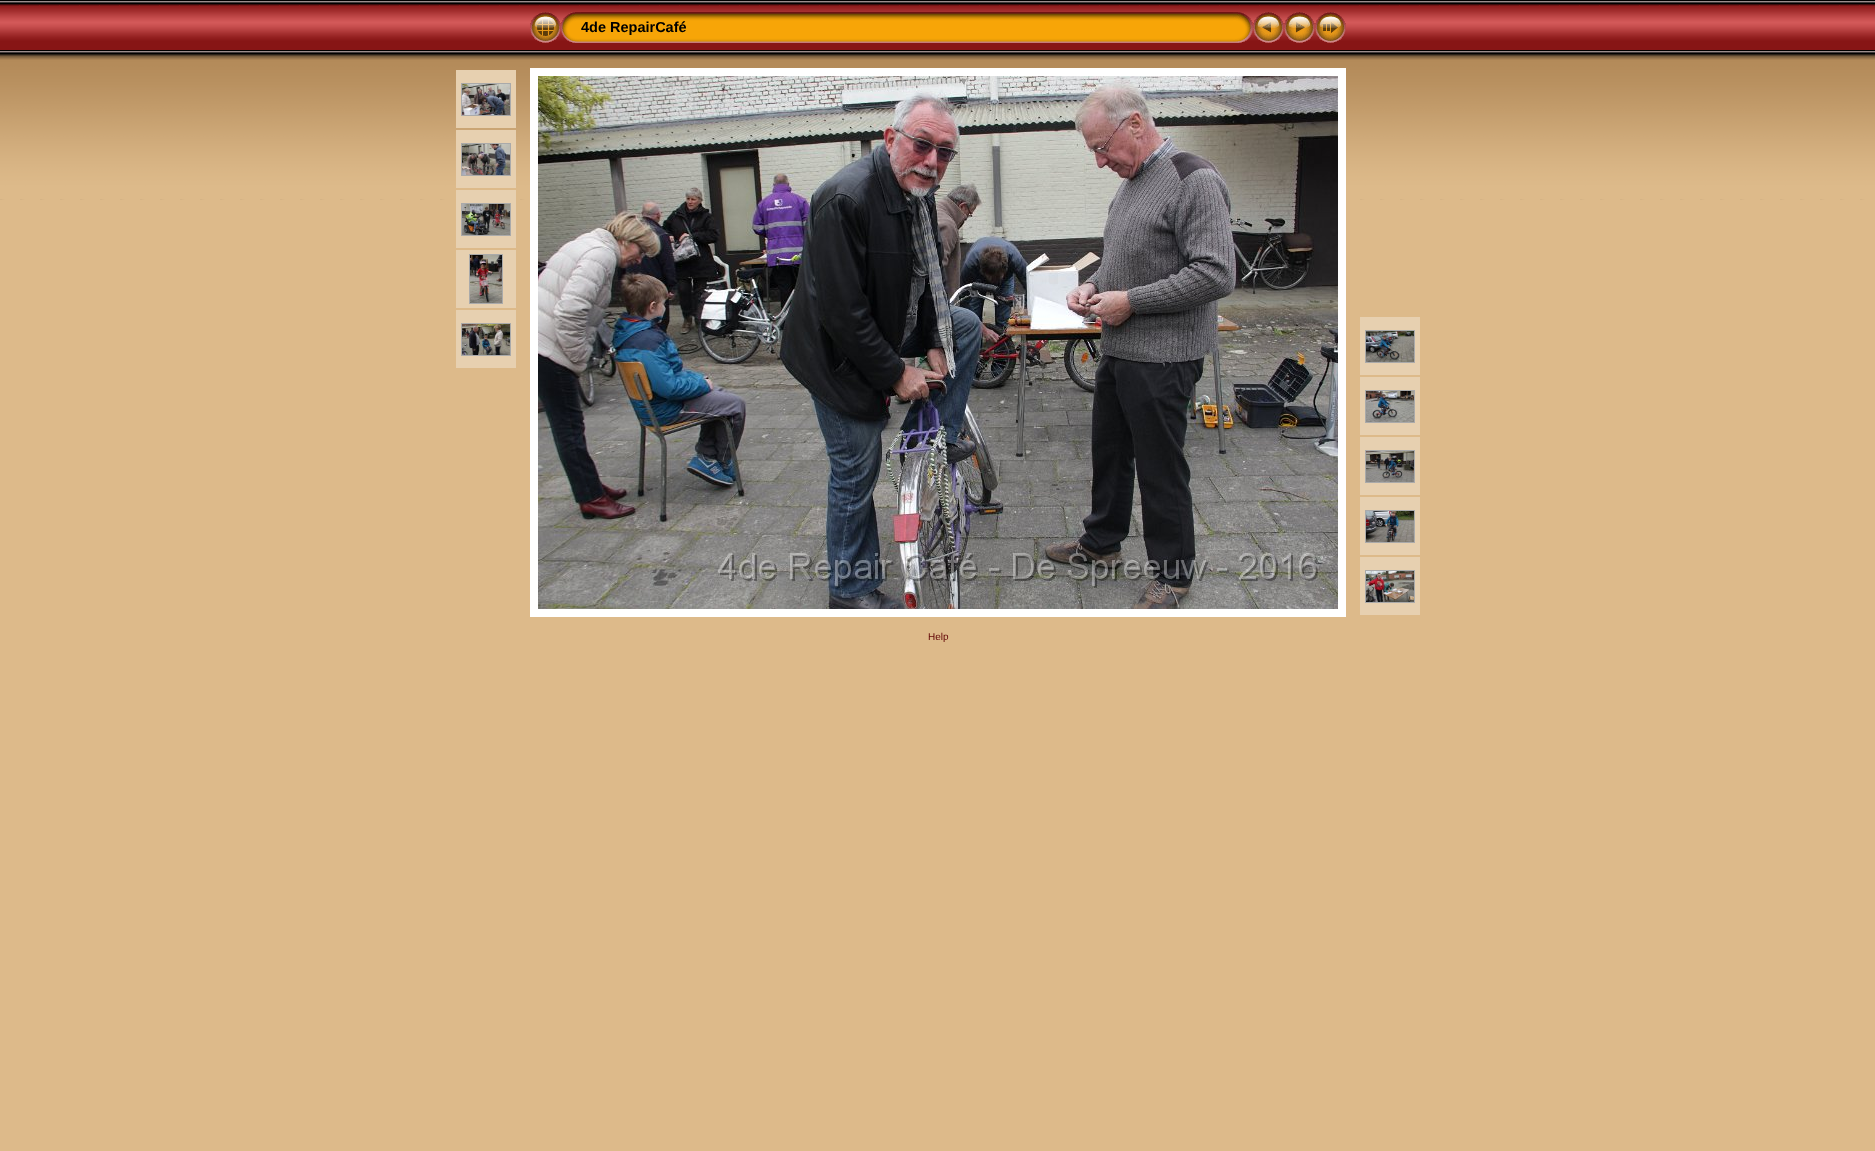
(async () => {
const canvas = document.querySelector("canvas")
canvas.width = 1875
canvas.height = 1151
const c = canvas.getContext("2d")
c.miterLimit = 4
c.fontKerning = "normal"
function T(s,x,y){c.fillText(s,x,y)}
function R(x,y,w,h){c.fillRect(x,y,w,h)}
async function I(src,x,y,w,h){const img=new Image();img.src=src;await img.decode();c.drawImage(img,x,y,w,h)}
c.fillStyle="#ddba8a"
R(0,0,1875,1151)
await I("1.png",0,0,1875,200)
await I("2.png",530,12,31,31)
await I("3.png",561,12,20,31)
await I("4.png",581,12,652,31)
c.font="bold 14.5px Liberation Sans"
c.fillStyle="#000"
T("4de RepairCafé",581,32)
await I("5.png",1233,12,20,31)
await I("6.png",1253,12,31,31)
await I("7.png",1284,12,31,31)
await I("8.png",1315,12,31,31)
c.fillStyle="#e7d0b0"
R(456,70,60,58)
c.strokeStyle="#aaa"
c.strokeRect(461.5,83.5,49,32)
await I("9.png",462,84,48,31)
R(456,130,60,58)
c.strokeRect(461.5,143.5,49,32)
await I("10.png",462,144,48,31)
R(456,190,60,58)
c.strokeRect(461.5,203.5,49,32)
await I("11.png",462,204,48,31)
R(456,250,60,58)
c.strokeRect(469.5,254.5,33,49)
await I("12.png",470,255,32,48)
R(456,310,60,58)
c.strokeRect(461.5,323.5,49,32)
await I("13.png",462,324,48,31)
c.strokeStyle="#fff"
c.lineWidth=8
c.strokeRect(534,72,808,541)
await I("14.png",538,76,800,533)
R(1360,317,60,58)
c.strokeStyle="#aaa"
c.lineWidth=1
c.strokeRect(1365.5,330.5,49,32)
await I("15.png",1366,331,48,31)
R(1360,377,60,58)
c.strokeRect(1365.5,390.5,49,32)
await I("16.png",1366,391,48,31)
R(1360,437,60,58)
c.strokeRect(1365.5,450.5,49,32)
await I("17.png",1366,451,48,31)
R(1360,497,60,58)
c.strokeRect(1365.5,510.5,49,32)
await I("18.png",1366,511,48,31)
R(1360,557,60,58)
c.strokeRect(1365.5,570.5,49,32)
await I("19.png",1366,571,48,31)
c.font="10px Liberation Sans"
c.fillStyle="#610505"
T("Help",928,640)
})()
